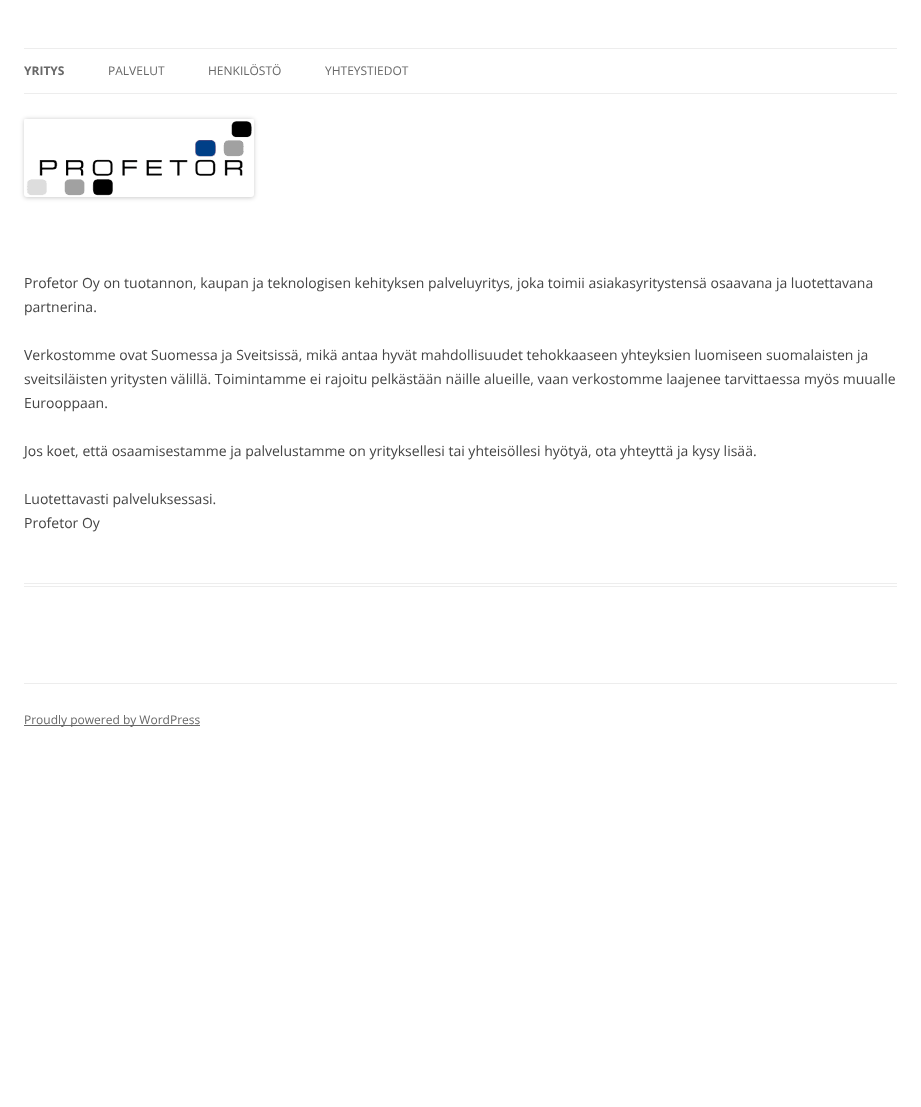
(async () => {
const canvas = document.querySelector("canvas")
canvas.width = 921
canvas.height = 1107
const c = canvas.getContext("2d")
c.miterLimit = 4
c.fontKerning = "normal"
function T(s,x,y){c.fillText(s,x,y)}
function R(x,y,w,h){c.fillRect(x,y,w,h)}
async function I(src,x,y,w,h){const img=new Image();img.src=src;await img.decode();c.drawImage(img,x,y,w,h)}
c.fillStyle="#fff"
R(0,0,921,1107)
c.fillStyle="#ededed"
R(24,48,873,1)
R(24,93,873,1)
c.font="bold 12px Open Sans"
c.fillStyle="#686868"
T("YRITYS",24,75)
c.font="12px Open Sans"
T("PALVELUT",108,75)
T("HENKILÖSTÖ",208,75)
T("YHTEYSTIEDOT",325,75)
c.fillStyle="#00000033"
c.filter="blur(2px)"
c.beginPath()
c.roundRect(24,119,230,79,3)
c.fill()
c.filter="none"
await I("1.png",24,119,230,78)
c.fillStyle="#ededed"
R(24,583,873,1)
R(24,586,873,1)
c.font="14px Open Sans"
c.fillStyle="#444"
T("Profetor Oy on tuotannon, kaupan ja teknologisen kehityksen palveluyritys, joka toimii asiakasyritystensä osaavana ja luotettavana",24,288)
T("partnerina.",24,312)
T("Verkostomme ovat Suomessa ja Sveitsissä, mikä antaa hyvät mahdollisuudet tehokkaaseen yhteyksien luomiseen suomalaisten ja",24,360)
T("sveitsiläisten yritysten välillä. Toimintamme ei rajoitu pelkästään näille alueille, vaan verkostomme laajenee tarvittaessa myös muualle",24,384)
T("Eurooppaan.",24,408)
T("Jos koet, että osaamisestamme ja palvelustamme on yrityksellesi tai yhteisöllesi hyötyä, ota yhteyttä ja kysy lisää.",24,456)
T("Luotettavasti palveluksessasi.",24,504)
T("Profetor Oy",24,528)
c.fillStyle="#ededed"
R(24,683,873,1)
c.fillStyle="#686868"
R(24,725,176,1)
c.font="12px Open Sans"
T("Proudly powered by WordPress",24,724)
})()
